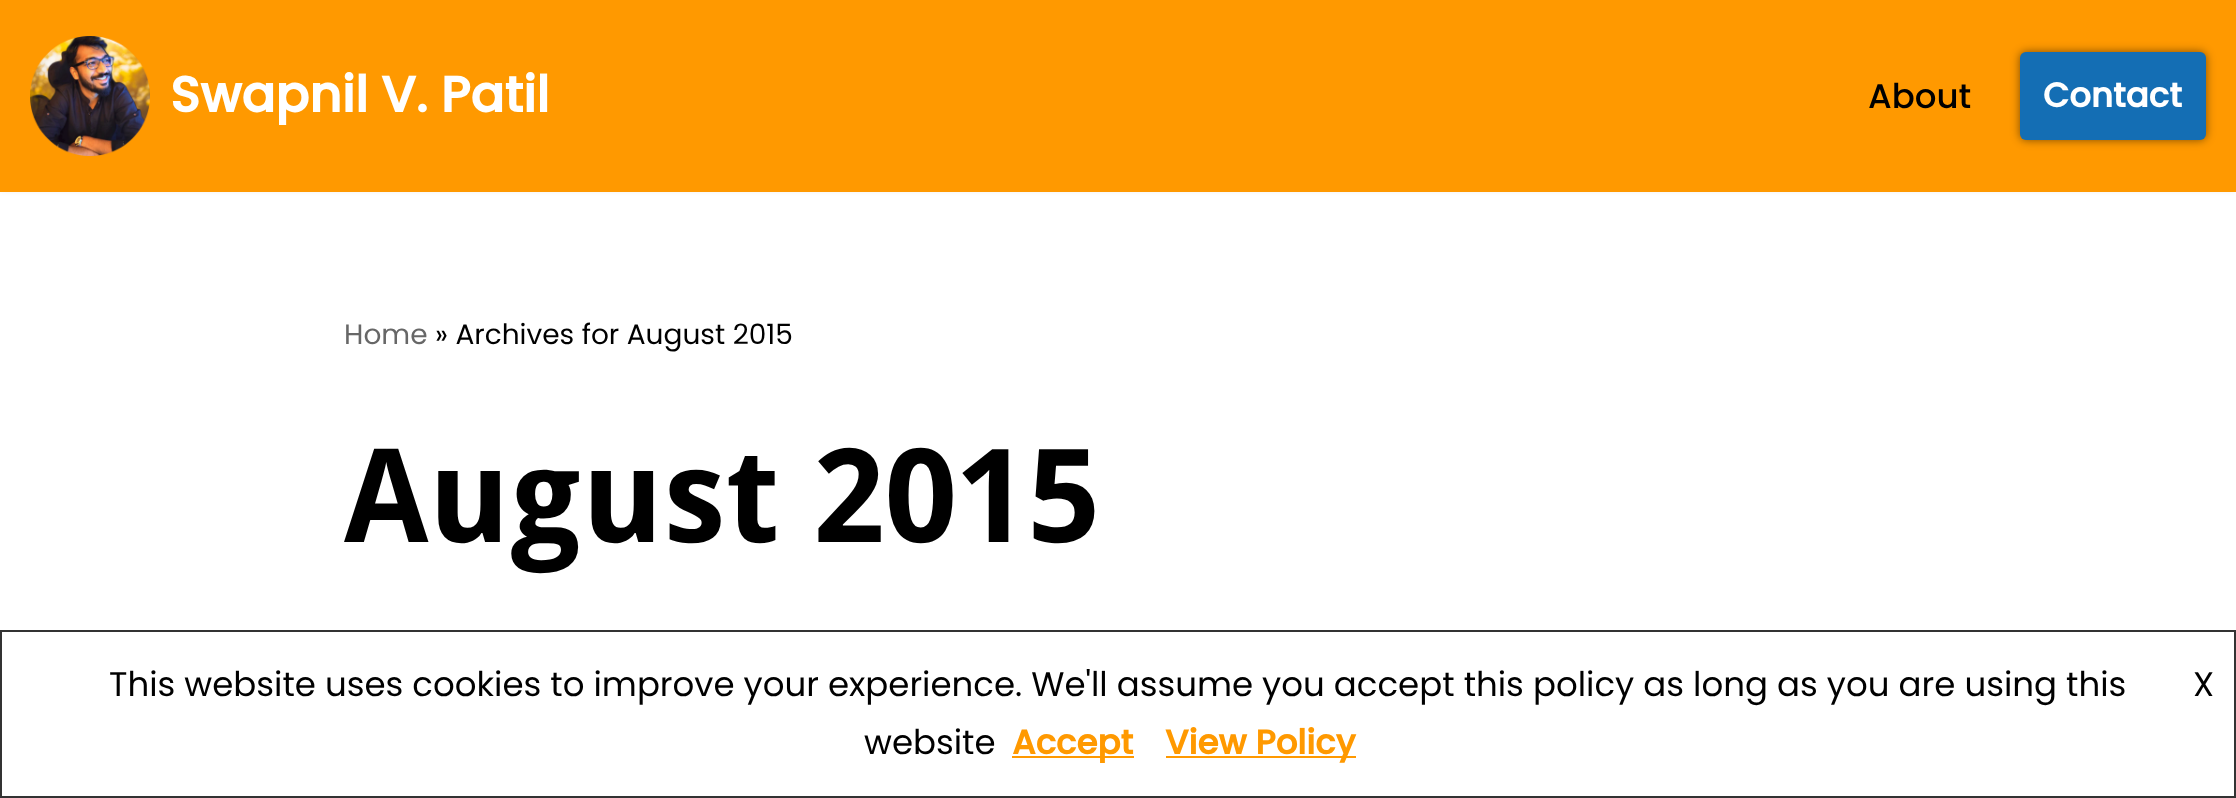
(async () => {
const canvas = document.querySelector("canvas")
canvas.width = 2236
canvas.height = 798
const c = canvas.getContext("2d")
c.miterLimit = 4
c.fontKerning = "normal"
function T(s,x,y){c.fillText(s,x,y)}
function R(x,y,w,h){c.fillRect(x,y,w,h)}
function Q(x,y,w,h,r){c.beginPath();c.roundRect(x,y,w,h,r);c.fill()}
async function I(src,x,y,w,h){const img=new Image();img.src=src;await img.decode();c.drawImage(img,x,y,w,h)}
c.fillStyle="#fff"
R(0,0,2236,798)
c.fillStyle="#0000001a"
c.filter="blur(3px)"
c.beginPath()
c.rect(0,-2,2236,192)
c.fill()
c.filter="none"
c.fillStyle="#f90"
R(0,0,2236,192)
await I("1.png",30,36,120,120)
c.font="bold 50px Poppins"
c.fillStyle="#fff"
T("Swapnil V. Patil",170,112)
c.font="500 34px Poppins"
c.fillStyle="#000"
T("About",1868,108)
c.fillStyle="#00000080"
c.filter="blur(5px)"
c.beginPath()
c.roundRect(2020,52,186,88,6)
c.fill()
c.filter="none"
c.fillStyle="#146eb4"
Q(2020,52,186,88,6)
c.font="bold 34px Poppins"
c.fillStyle="#fff"
T("Contact",2043,107)
c.font="28px Poppins"
c.fillStyle="#676767"
T("Home",344,344)
c.fillStyle="#000"
T("» Archives for August 2015",435,344)
c.font="bold 130px Droid Sans"
T("August 2015",344,542)
c.strokeStyle="#333"
c.lineWidth=2
c.strokeRect(1,631,2234,166)
c.font="34px Poppins"
T("This website uses cookies to improve your experience. We'll assume you accept this policy as long as you are using this",109,696)
T("X",2193,696)
T("website",864,754)
c.fillStyle="#f90"
R(1012,756,122,2)
c.font="bold 34px Poppins"
T("Accept",1012,754)
R(1166,756,190,2)
T("View Policy",1165,754)
})()
